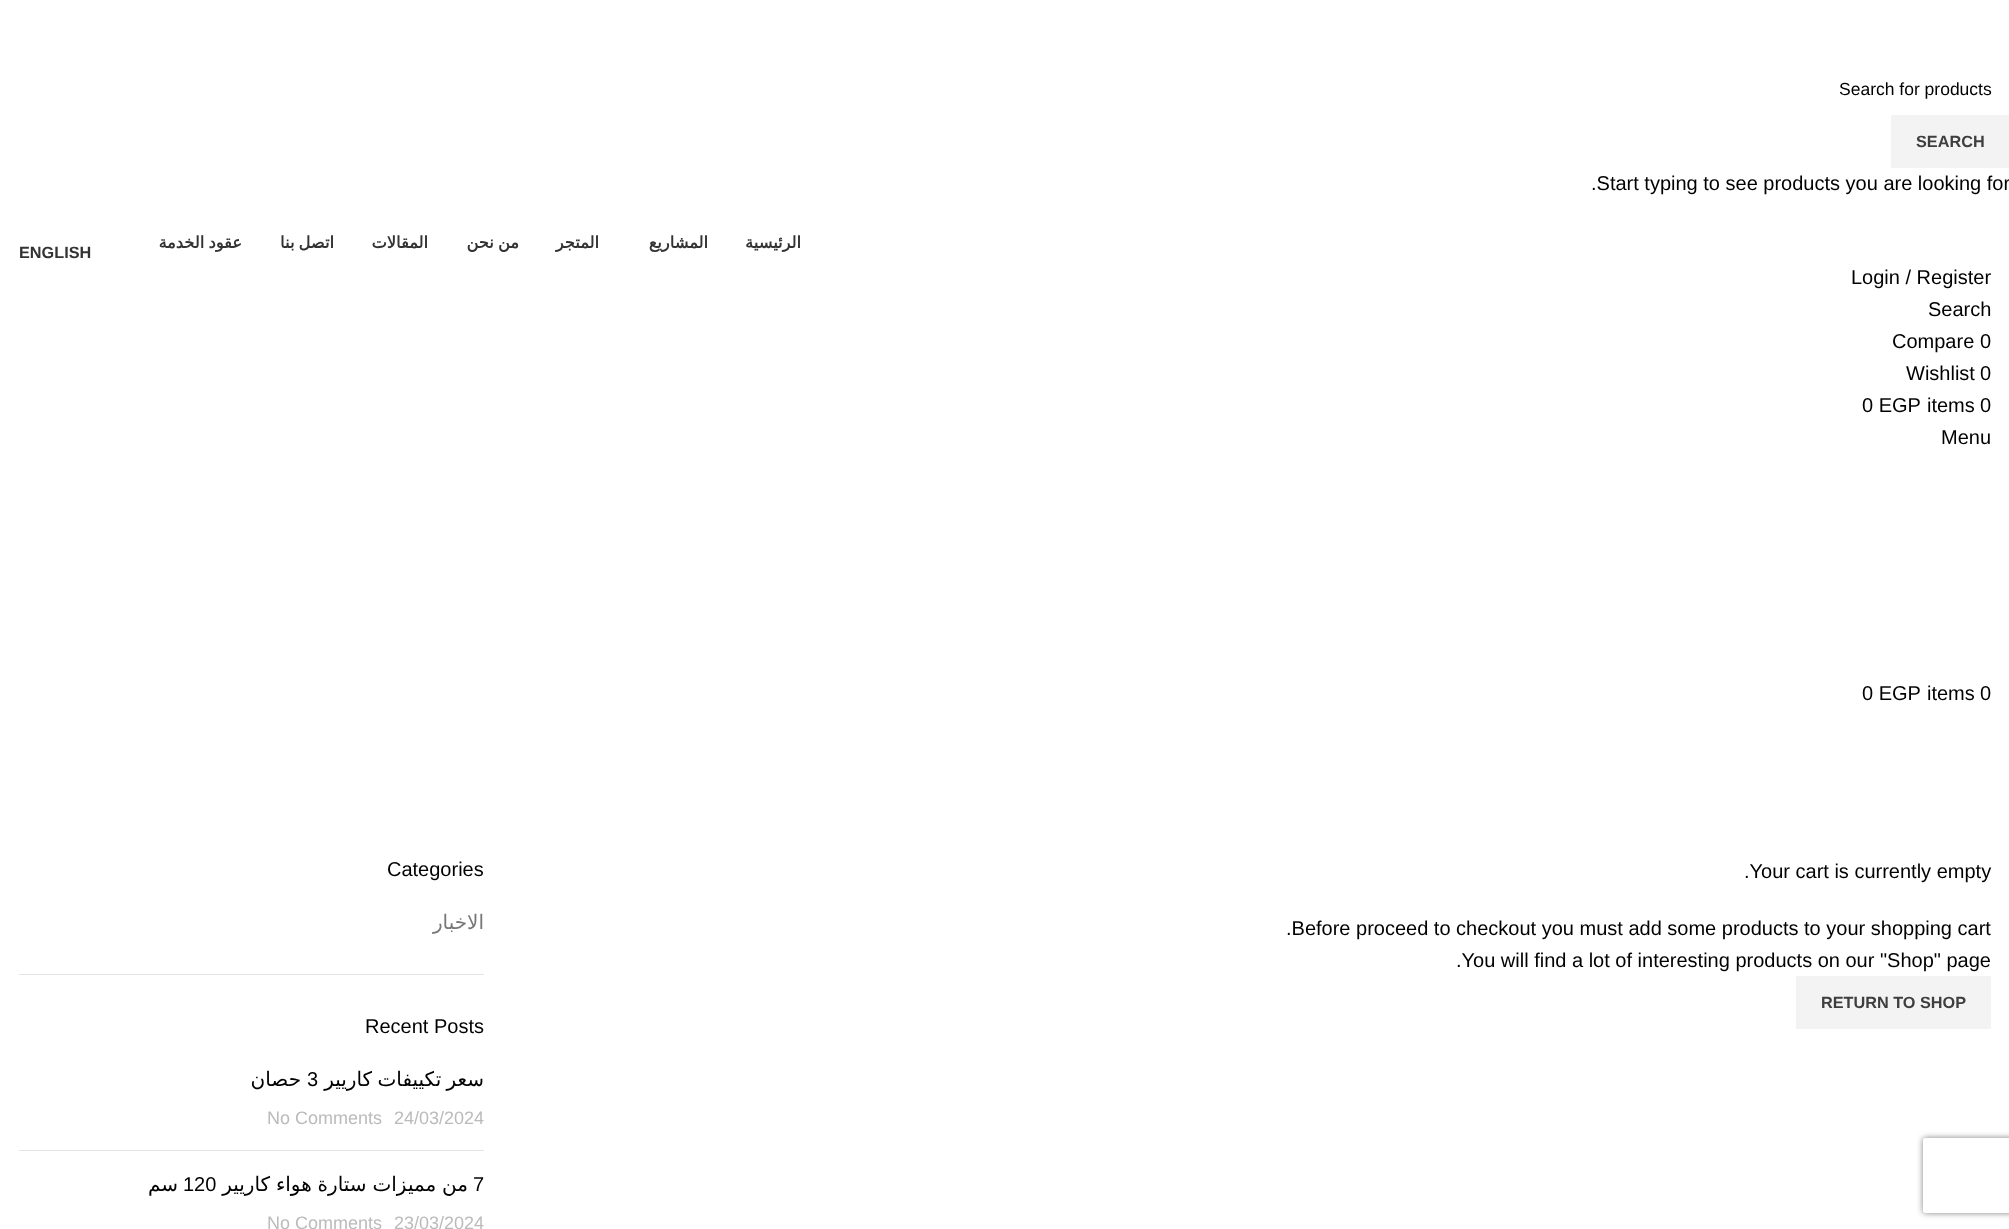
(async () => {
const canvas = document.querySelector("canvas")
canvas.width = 2009
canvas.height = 1229
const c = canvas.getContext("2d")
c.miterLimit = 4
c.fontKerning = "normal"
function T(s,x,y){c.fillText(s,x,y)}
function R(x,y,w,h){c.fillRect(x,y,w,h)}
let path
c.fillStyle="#fff"
R(0,0,2009,1229)
c.font="17.5px Liberation Sans"
c.fillStyle="#000"
T("Search for products",1839,95)
c.fillStyle="#f3f3f3"
R(1891,115,118,53)
c.font="bold 16.25px Liberation Sans"
c.fillStyle="#3e3e3e"
T("SEARCH",1916,147)
c.font="20px Liberation Sans"
c.fillStyle="#000"
T(".Start typing to see products you are looking for",1591,190)
c.font="bold 16.25px Liberation Sans"
c.fillStyle="#333"
T("ENGLISH",19,258)
c.wordSpacing="-1px"
c.direction="rtl"
c.font="bold 16.25px DejaVu Sans"
T("عقود الخدمة",242,248)
T("اتصل بنا",334,248)
c.wordSpacing="0px"
T("المقالات",428,248)
c.wordSpacing="-1px"
T("من نحن",519,248)
c.wordSpacing="0px"
T("المتجر",599,248)
T("المشاريع",708,248)
T("الرئيسية",801,248)
c.direction="ltr"
c.font="20px Liberation Sans"
c.fillStyle="#000"
T("Login / Register",1851,284)
T("Search",1928,316)
T("Compare",1892,348)
T("0",1980,348)
T("Wishlist",1906,380)
T("0",1980,380)
T("0 EGP",1862,412)
T("items",1927,412)
T("0",1980,412)
T("Menu",1941,444)
T("0 EGP",1862,700)
T("items",1927,700)
T("0",1980,700)
c.fillStyle="#e4e4e4"
R(19,974,465,1)
c.fillStyle="#000"
T("Categories",387,876)
c.direction="rtl"
c.font="20px DejaVu Sans"
c.fillStyle="#777"
T("الاخبار",484,929)
c.direction="ltr"
c.font="20px Liberation Sans"
c.fillStyle="#000"
T("Recent Posts",365,1033)
c.fillStyle="#e4e4e4"
R(19,1150,465,1)
c.direction="rtl"
c.font="20px DejaVu Sans"
c.fillStyle="#000"
T("حصان",301,1086)
c.direction="ltr"
c.font="20px Liberation Sans"
T("3",307,1086)
c.wordSpacing="-1px"
c.direction="rtl"
c.font="20px DejaVu Sans"
T("سعر تكييفات كاريير",484,1086)
c.wordSpacing="0px"
c.direction="ltr"
c.font="18px Liberation Sans"
c.fillStyle="#bbb"
T("No Comments",267,1124)
T("24/03/2024",394,1124)
c.direction="rtl"
c.font="20px DejaVu Sans"
c.fillStyle="#000"
T("سم",178,1191)
c.direction="ltr"
c.font="20px Liberation Sans"
T("120",183,1191)
c.wordSpacing="-0.5px"
c.direction="rtl"
c.font="20px DejaVu Sans"
T("من مميزات ستارة هواء كاريير",468,1191)
c.wordSpacing="0px"
c.direction="ltr"
c.font="20px Liberation Sans"
T("7",473,1191)
c.font="18px Liberation Sans"
c.fillStyle="#bbb"
T("No Comments",267,1229)
T("23/03/2024",394,1229)
c.font="20px Liberation Sans"
c.fillStyle="#000"
T(".Your cart is currently empty",1744,878)
T(".Before proceed to checkout you must add some products to your shopping cart",1286,935)
T(".You will find a lot of interesting products on our \"Shop\" page",1456,967)
c.fillStyle="#f3f3f3"
R(1796,976,195,53)
c.font="bold 16.25px Liberation Sans"
c.fillStyle="#3e3e3e"
T("RETURN TO SHOP",1821,1008)
c.save()
path = new Path2D("M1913 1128h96v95h-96zm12.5 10h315c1.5 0 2.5 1 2.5 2.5v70c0 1.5-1 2.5-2.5 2.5h-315c-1.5 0-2.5-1-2.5-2.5v-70c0-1.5 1-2.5 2.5-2.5z")
c.clip(path,"evenodd")
c.fillStyle="#808080"
c.filter="blur(3px)"
c.beginPath()
c.roundRect(1923,1138,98,75,2.5)
c.fill()
c.filter="none"
c.restore()
})()
